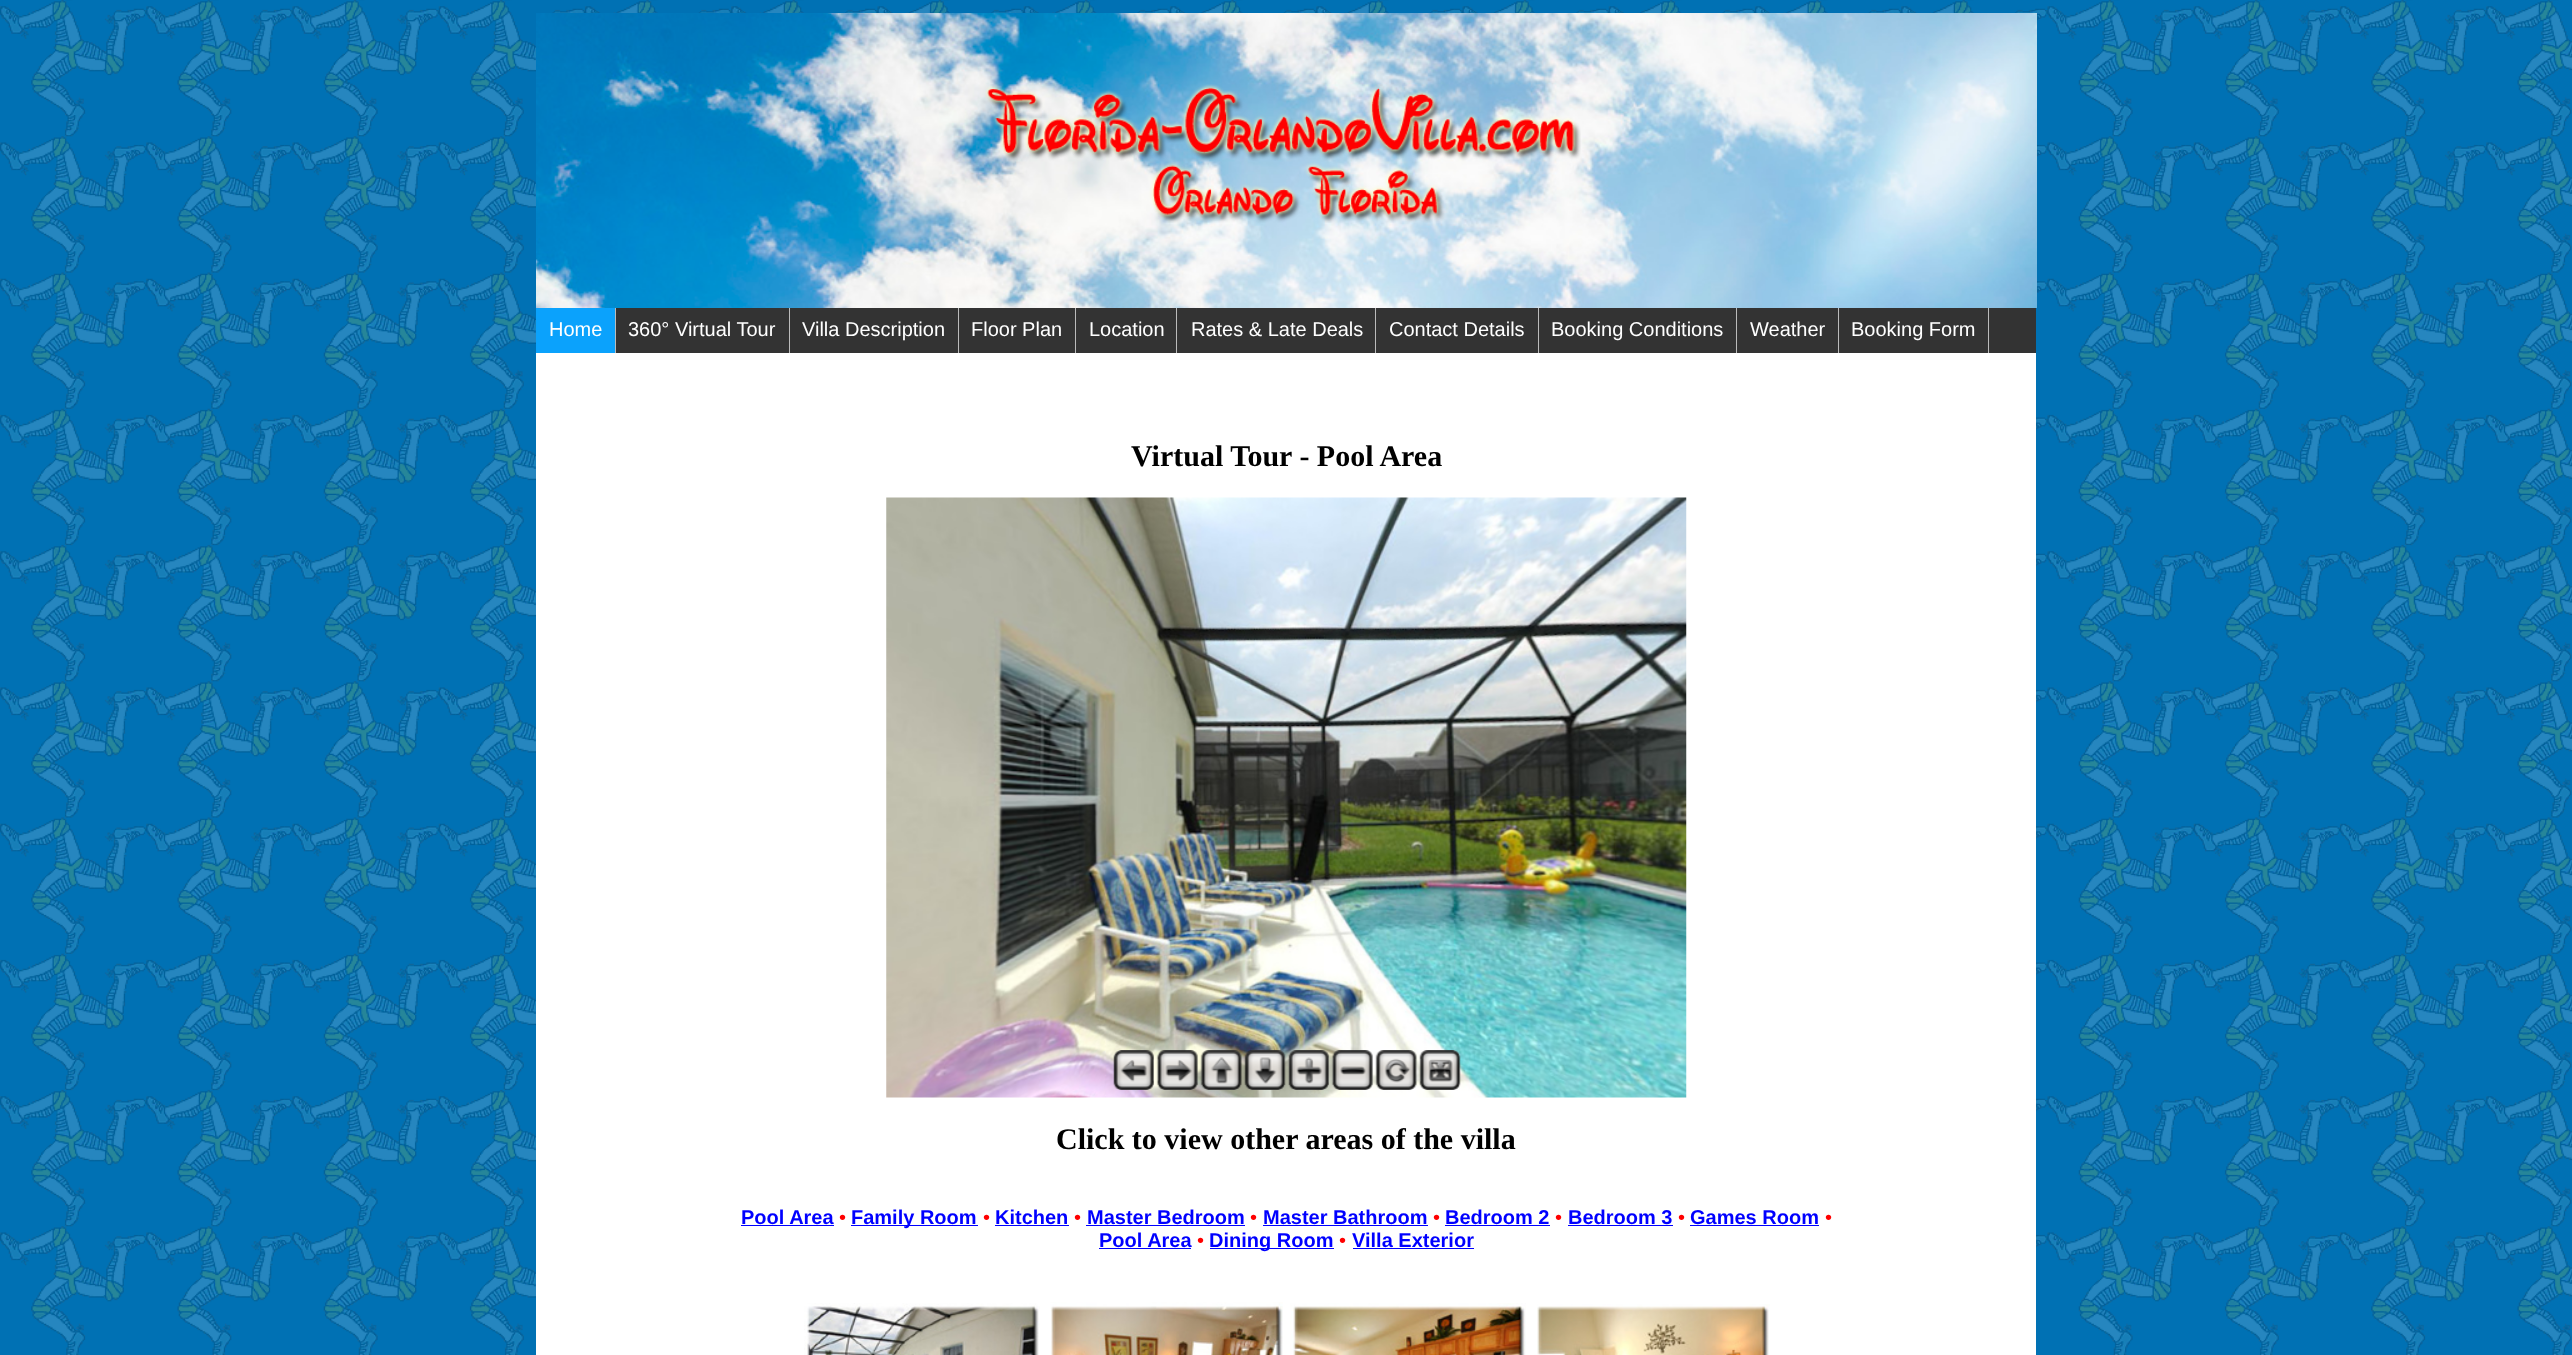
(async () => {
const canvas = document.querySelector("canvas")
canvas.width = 2572
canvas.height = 1355
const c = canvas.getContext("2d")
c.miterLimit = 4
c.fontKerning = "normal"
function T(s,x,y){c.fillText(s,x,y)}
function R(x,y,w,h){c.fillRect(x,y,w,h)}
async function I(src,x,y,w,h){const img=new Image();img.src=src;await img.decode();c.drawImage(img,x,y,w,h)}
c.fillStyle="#0071b4"
R(0,0,2572,1355)
await I("1.png",0,0,2572,1355)
await I("2.png",536,13,1501,295)
await I("3.png",985,84,596,139)
c.fillStyle="#333"
R(616,308,1420,45)
c.fillStyle="#0ba2fc"
R(536,308,79,45)
c.fillStyle="#bbb"
R(615,308,1,45)
c.font="20px Liberation Sans"
c.fillStyle="#fff"
T("Home",549,336)
c.fillStyle="#bbb"
R(789,308,1,45)
c.fillStyle="#fff"
T("360° Virtual Tour",628,336)
c.fillStyle="#bbb"
R(958,308,1,45)
c.fillStyle="#fff"
T("Villa Description",802,336)
c.fillStyle="#bbb"
R(1075,308,1,45)
c.fillStyle="#fff"
T("Floor Plan",971,336)
c.fillStyle="#bbb"
R(1176,308,1,45)
c.fillStyle="#fff"
T("Location",1089,336)
c.fillStyle="#bbb"
R(1375,308,1,45)
c.fillStyle="#fff"
T("Rates & Late Deals",1191,336)
c.fillStyle="#bbb"
R(1538,308,1,45)
c.fillStyle="#fff"
T("Contact Details",1389,336)
c.fillStyle="#bbb"
R(1736,308,1,45)
c.fillStyle="#fff"
T("Booking Conditions",1551,336)
c.fillStyle="#bbb"
R(1838,308,1,45)
c.fillStyle="#fff"
T("Weather",1750,336)
c.fillStyle="#bbb"
R(1988,308,1,45)
c.fillStyle="#fff"
T("Booking Form",1851,336)
R(536,353,1500,1002)
c.font="bold 30px Liberation Serif"
c.fillStyle="#000"
T("Virtual Tour - Pool Area",1131,466)
await I("4.png",886,497,801,601)
await I("5.png",1113,1050,41,40)
await I("6.png",1156,1050,42,40)
await I("7.png",1200,1050,42,40)
await I("8.png",1244,1050,42,40)
await I("9.png",1288,1050,41,40)
await I("10.png",1331,1050,42,40)
await I("11.png",1375,1050,42,40)
await I("12.png",1419,1050,42,40)
T("Click to view other areas of the villa",1056,1149)
c.font="bold 20px Liberation Sans"
c.fillStyle="#00f"
T("Pool Area",741,1224)
R(741,1225,93,1)
c.font="20px Liberation Sans"
c.fillStyle="#f00"
T("•",839,1224)
c.fillStyle="#00f"
R(851,1225,127,1)
c.font="bold 20px Liberation Sans"
T("Family Room",851,1224)
c.font="20px Liberation Sans"
c.fillStyle="#f00"
T("•",983,1224)
c.font="bold 20px Liberation Sans"
c.fillStyle="#00f"
T("Kitchen",995,1224)
R(995,1225,74,1)
c.font="20px Liberation Sans"
c.fillStyle="#f00"
T("•",1074,1224)
c.font="bold 20px Liberation Sans"
c.fillStyle="#00f"
T("Master Bedroom",1087,1224)
R(1086,1225,159,1)
c.font="20px Liberation Sans"
c.fillStyle="#f00"
T("•",1250,1224)
c.font="bold 20px Liberation Sans"
c.fillStyle="#00f"
T("Master Bathroom",1263,1224)
R(1263,1225,165,1)
c.font="20px Liberation Sans"
c.fillStyle="#f00"
T("•",1433,1224)
c.font="bold 20px Liberation Sans"
c.fillStyle="#00f"
T("Bedroom 2",1445,1224)
R(1445,1225,105,1)
c.font="20px Liberation Sans"
c.fillStyle="#f00"
T("•",1555,1224)
c.font="bold 20px Liberation Sans"
c.fillStyle="#00f"
T("Bedroom 3",1568,1224)
R(1568,1225,105,1)
c.font="20px Liberation Sans"
c.fillStyle="#f00"
T("•",1678,1224)
c.font="bold 20px Liberation Sans"
c.fillStyle="#00f"
T("Games Room",1690,1224)
R(1690,1225,129,1)
c.font="20px Liberation Sans"
c.fillStyle="#f00"
T("•",1825,1224)
c.font="bold 20px Liberation Sans"
c.fillStyle="#00f"
T("Pool Area",1099,1247)
R(1099,1248,92,1)
c.font="20px Liberation Sans"
c.fillStyle="#f00"
T("•",1197,1247)
c.fillStyle="#00f"
R(1210,1248,124,1)
c.font="bold 20px Liberation Sans"
T("Dining Room",1209,1247)
c.font="20px Liberation Sans"
c.fillStyle="#f00"
T("•",1339,1247)
c.font="bold 20px Liberation Sans"
c.fillStyle="#00f"
T("Villa Exterior",1352,1247)
R(1353,1248,121,1)
await I("13.png",804,1303,236,52)
await I("14.png",1050,1302,233,53)
await I("15.png",1290,1303,236,52)
await I("16.png",1537,1304,233,51)
})()
